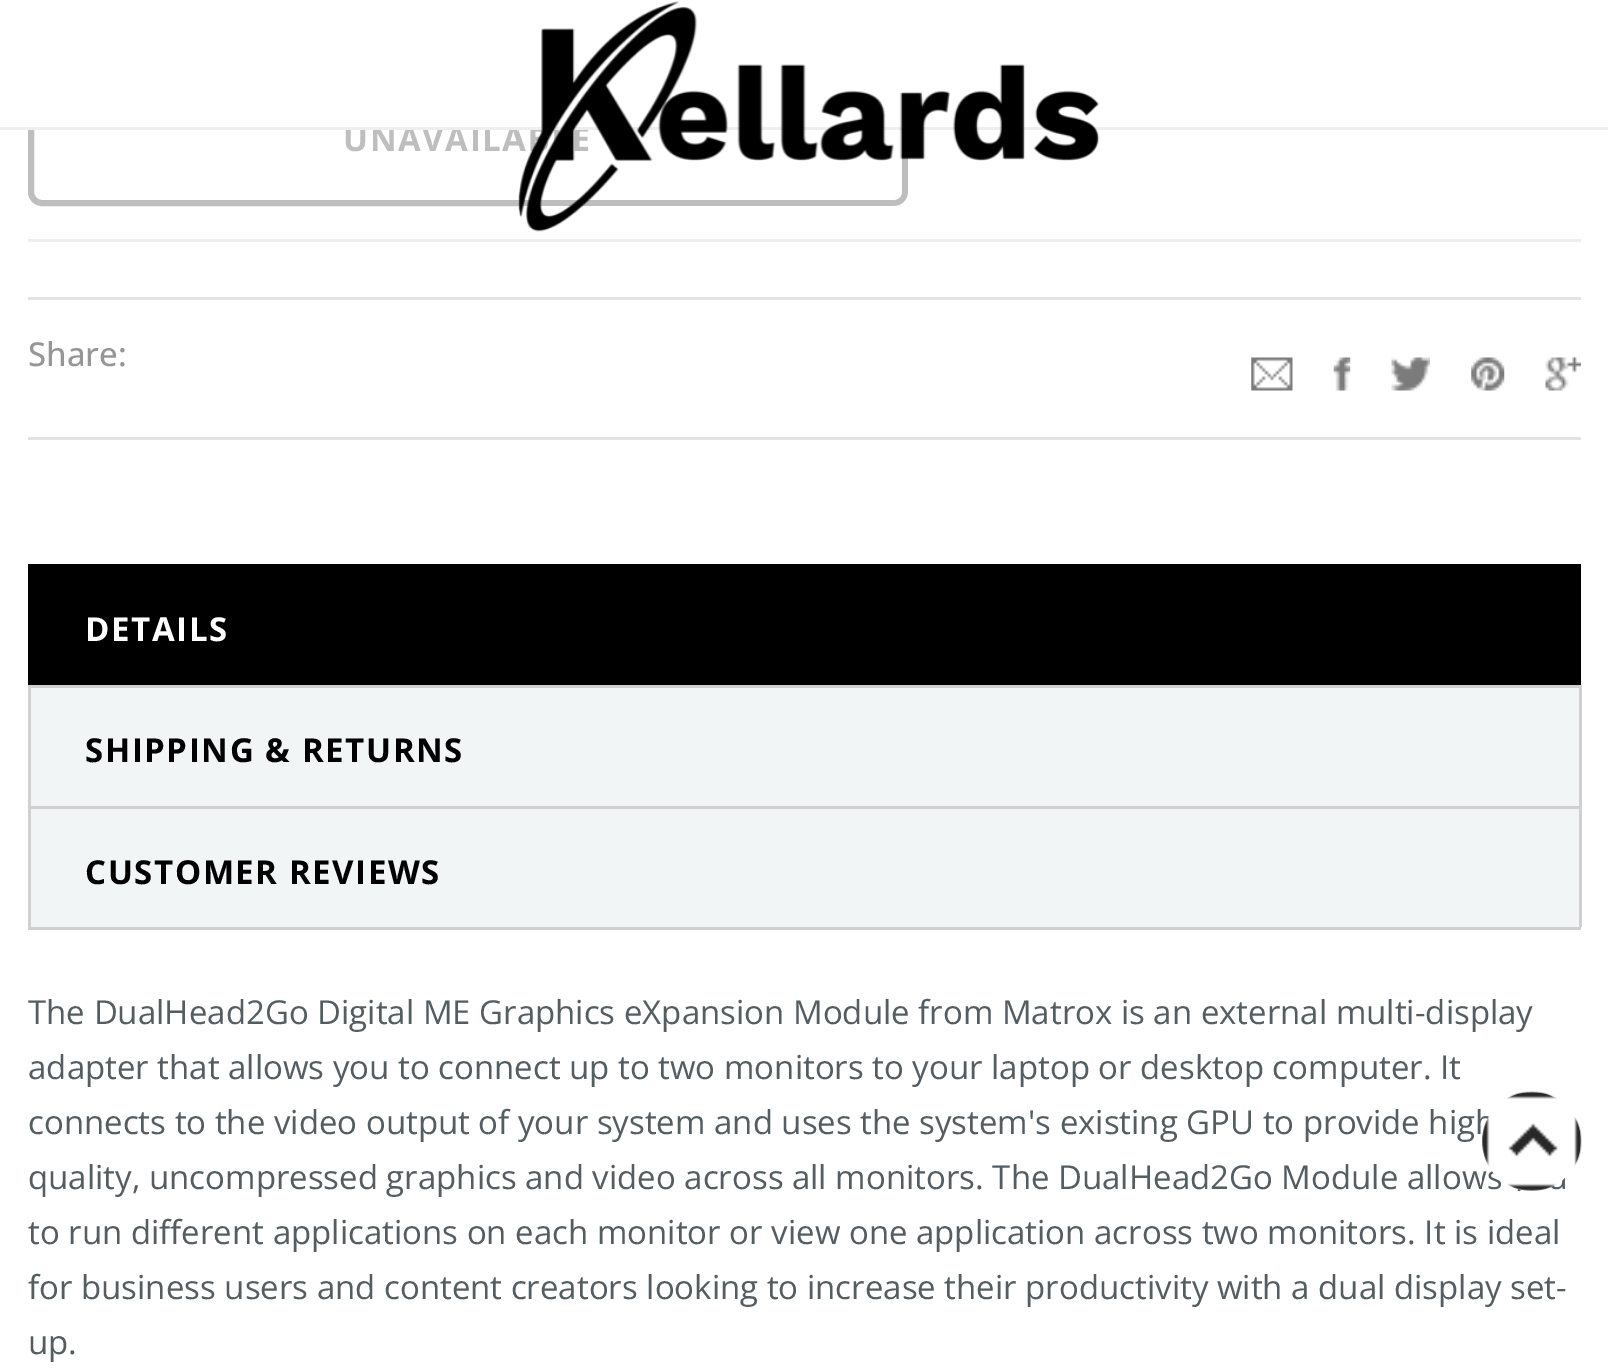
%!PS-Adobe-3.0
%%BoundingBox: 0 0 1608 1371
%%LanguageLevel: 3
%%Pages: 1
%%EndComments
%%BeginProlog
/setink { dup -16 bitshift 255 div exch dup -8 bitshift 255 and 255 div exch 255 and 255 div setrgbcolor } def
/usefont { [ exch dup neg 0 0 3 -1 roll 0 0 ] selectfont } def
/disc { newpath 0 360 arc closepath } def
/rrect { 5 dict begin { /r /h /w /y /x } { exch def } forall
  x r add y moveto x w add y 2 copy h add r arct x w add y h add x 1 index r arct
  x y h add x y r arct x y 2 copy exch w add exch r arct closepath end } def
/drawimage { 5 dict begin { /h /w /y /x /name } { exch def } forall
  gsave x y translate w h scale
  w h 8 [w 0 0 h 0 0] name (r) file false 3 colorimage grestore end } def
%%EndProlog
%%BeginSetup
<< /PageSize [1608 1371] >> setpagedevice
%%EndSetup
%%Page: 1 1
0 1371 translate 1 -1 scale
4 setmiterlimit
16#FFFFFF setink
0 0 1608 1371 rectfill
16#EEEEEE setink
1093 127 515 3 rectfill
16#BEBEBE setink
6 setlinewidth
31 77 874 126 11 rrect stroke
16#FFFFFF setink
28 74 880 53 rectfill
/OpenSans-Bold 33 usefont
16#BEBEBE setink
343 151 moveto 1.6 0 (UNAVAILABLE) ashow
16#EEEEEE setink
0 127 1050 3 rectfill
(img1.raw) 518 1 582 231 drawimage
[
    [28 239 1553 3 16#EEEEEE]
    [28 297 1553 3 16#E3E3E3]
    [28 437 1553 3 16#E3E3E3]
] { aload pop setink rectfill } forall
/OpenSans-Medium 33 usefont
16#969696 setink
28 366 moveto (Share:) show
(img2.raw) 1251 357 42 34 drawimage
(img3.raw) 1333 357 18 34 drawimage
(img4.raw) 1391 357 39 34 drawimage
(img5.raw) 1471 357 34 34 drawimage
(img6.raw) 1545 357 37 34 drawimage
16#D0D0D0 setink
28 927 1553 3 rectfill
16#000000 setink
28 564 1553 121 rectfill
/OpenSans-Bold 33 usefont
16#FFFFFF setink
85 641 moveto 1.6 0 (DETAILS) ashow
[
    [31 688 1548 118 16#F2F5F6]
    [28 685 1553 3 16#D0D0D0]
    [1579 685 3 121 16#D0D0D0]
    [28 685 3 121 16#D0D0D0]
] { aload pop setink rectfill } forall
16#000000 setink
85 762 moveto 1.6 0 (SHIPPING & RETURNS) ashow
[
    [31 809 1548 118 16#F2F5F6]
    [28 806 1553 3 16#D0D0D0]
    [1579 806 3 121 16#D0D0D0]
    [28 806 3 121 16#D0D0D0]
] { aload pop setink rectfill } forall
16#000000 setink
85 884 moveto 1.6 0 (CUSTOMER REVIEWS) ashow
/OpenSans-Regular 33 usefont
16#535D62 setink
[
    [(The DualHead2Go Digital ME Graphics eXpansion Module from Matrox is an external multi-display) 28 1024]
    [(adapter that allows you to connect up to two monitors to your laptop or desktop computer. It) 28 1079]
    [(connects to the video output of your system and uses the system's existing GPU to provide high) 28 1134]
    [(quality, uncompressed graphics and video across all monitors. The DualHead2Go Module allow) 28 1189]
    [(to run different applications on each monitor or view one application across two monitors. It is ideal) 28 1244]
    [(for business users and content creators looking to increase their productivity with a dual display set-) 28 1299]
    [(up.) 28 1354]
] { aload pop moveto show } forall
16#FFFFFF setink
1531.5 1141.5 49.5 disc fill
(img7.raw) 1482 1091 100 100 drawimage
showpage
%%EOF
